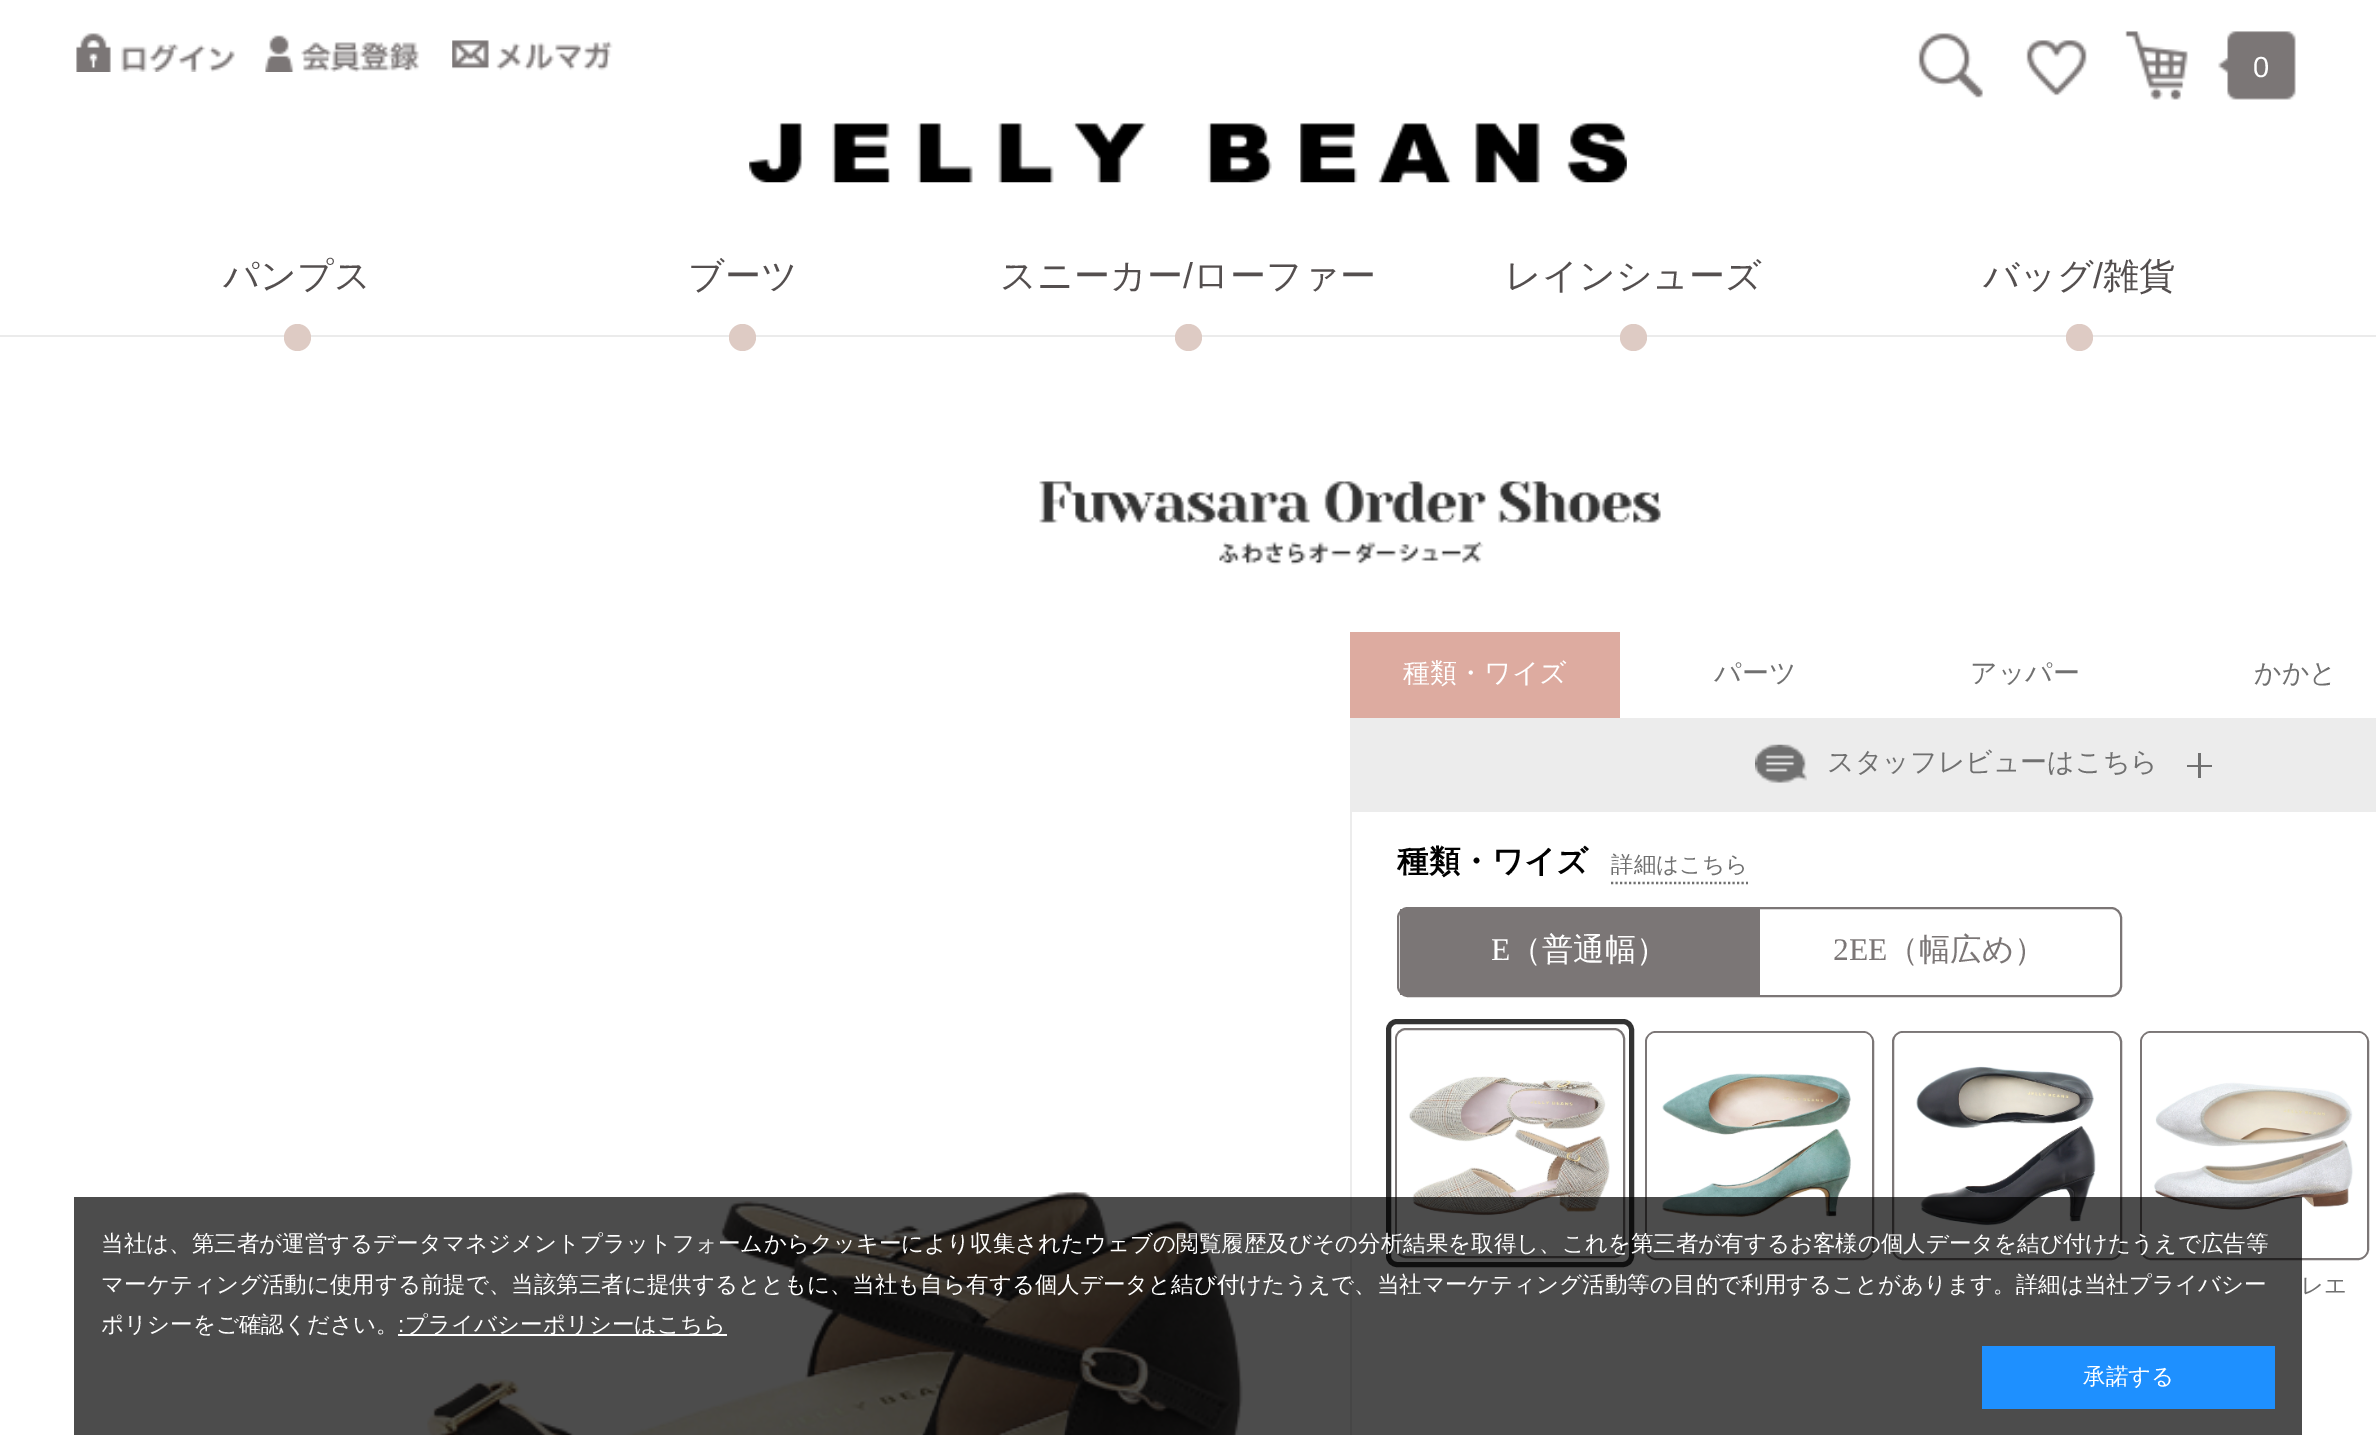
%!PS-Adobe-3.0
%%BoundingBox: 0 0 2376 1435
%%LanguageLevel: 3
%%Pages: 1
%%EndComments
%%BeginProlog
/setink { dup -16 bitshift 255 div exch dup -8 bitshift 255 and 255 div exch 255 and 255 div setrgbcolor } def
/usefont { [ exch dup neg 0 0 3 -1 roll 0 0 ] selectfont } def
/setalpha { dup .setfillconstantalpha .setstrokeconstantalpha } def
/disc { newpath 0 360 arc closepath } def
/rrect { 5 dict begin { /r /h /w /y /x } { exch def } forall
  x r add y moveto x w add y 2 copy h add r arct x w add y h add x 1 index r arct
  x y h add x y r arct x y 2 copy exch w add exch r arct closepath end } def
/drawimage { 5 dict begin { /h /w /y /x /name } { exch def } forall
  gsave x y translate w h scale
  w h 8 [w 0 0 h 0 0] name (r) file false 3 colorimage grestore end } def
%%EndProlog
%%BeginSetup
<< /PageSize [2376 1435] /PageUsesTransparency true >> setpagedevice
%%EndSetup
%%Page: 1 1
0 .pushpdf14devicefilter
0 1435 translate 1 -1 scale
4 setmiterlimit
16#FFFFFF setink
0 0 2376 1435 rectfill
16#EBEBEB setink
0 335 2376 2 rectfill
(img1.raw) 76 33 159 39 drawimage
(img2.raw) 265 35 155 37 drawimage
(img3.raw) 452 40 161 31 drawimage
(img4.raw) 1918 33 65 65 drawimage
(img5.raw) 2026 40 61 56 drawimage
(img6.raw) 2125 31 171 69 drawimage
/LiberationSans-Regular 29 usefont
16#FFFFFF setink
2253 77 moveto (0) show
(img7.raw) 749 121 878 62 drawimage
/WenQuanYiZenHei-Medium 36 usefont
16#544F4F setink
223 288 moveto (パンプス) show
16#DECBC4 setink
297.5 337.5 13.5 disc fill
16#544F4F setink
688 288 moveto (ブーツ) show
16#DECBC4 setink
742.5 337.5 13.5 disc fill
16#544F4F setink
1000 288 moveto (スニーカー) show
/LiberationSans-Regular 36 usefont
1183 288 moveto (/) show
/WenQuanYiZenHei-Medium 36 usefont
1193 288 moveto (ローファー) show
16#DECBC4 setink
1188.5 337.5 13.5 disc fill
16#544F4F setink
1505 288 moveto (レインシューズ) show
16#DECBC4 setink
1633.5 337.5 13.5 disc fill
16#544F4F setink
1983 288 moveto (バッグ) show
/LiberationSans-Regular 36 usefont
2093 288 moveto (/) show
/WenQuanYiZenHei-Medium 36 usefont
2103 288 moveto (雑貨) show
16#DECBC4 setink
2079.5 337.5 13.5 disc fill
(img8.raw) 1039 481 622 84 drawimage
(img9.raw) 721 1192 522 243 drawimage
(img12.raw) 511 1409 63 26 drawimage
(img10.raw) 427 1379 127 56 drawimage
(img11.raw) 626 1351 444 84 drawimage
16#DDABA0 setink
1350 632 270 86 rectfill
/WenQuanYiZenHei-Medium 27 usefont
16#FFFFFF setink
1403 682 moveto (種類・ワイズ) show
16#707070 setink
[
    [(パーツ) 1714 682]
    [(アッパー) 1970 682]
    [(かかと) 2254 682]
] { aload pop moveto show } forall
16#ECECEC setink
1350 718 1026 94 rectfill
(img13.raw) 1755 744 52 39 drawimage
16#707070 setink
1827 771 moveto (スタッフレビューはこちら) show
[
    [2198 753 3 25 16#707070]
    [2187 765 25 2 16#707070]
    [1350 812 2 623 16#ECECEC]
] { aload pop setink rectfill } forall
/WenQuanYiZenHei-Bold 31.5 usefont
16#000000 setink
1397 872 moveto (種類・ワイズ) show
16#707070 setink
2.2 setlinewidth
[2.25 2.25] 0 setdash
1611 883 moveto 1748 883 lineto stroke
/WenQuanYiZenHei-Medium 22.5 usefont
1611 872 moveto (詳細はこちら) show
16#7B7676 setink
2 setlinewidth
[] 0 setdash
1398 908 723 88 10 rrect stroke
1400 909 360 86 rectfill
/LiberationSerif-Regular 31.5 usefont
16#FFFFFF setink
1491 960 moveto (E) show
/WenQuanYiZenHei-Medium 31.5 usefont
1510 960 moveto (（普通幅）) show
/LiberationSerif-Regular 31.5 usefont
16#7B7676 setink
1833 960 moveto (2EE) show
/WenQuanYiZenHei-Medium 31.5 usefont
1887 960 moveto (（幅広め）) show
1396 1029 228 228 10 rrect stroke
(img14.raw) 1397 1033 213 217 drawimage
16#333333 setink
5 setlinewidth
1388.5 1021.5 243 243 8.5 rrect stroke
16#7B7676 setink
2 setlinewidth
1646 1032 227 227 10 rrect stroke
(img15.raw) 1647 1032 225 226 drawimage
1893 1032 228 227 10 rrect stroke
(img16.raw) 1895 1032 224 226 drawimage
2141 1032 227 227 10 rrect stroke
(img17.raw) 2142 1032 225 226 drawimage
/WenQuanYiZenHei-Medium 22.5 usefont
16#707070 setink
2301 1293 moveto (レエ) show
0.7 setalpha
16#000000 setink
74 1197 2228 238 rectfill
1 setalpha
16#FFFFFF setink
[
    [(当社は、第三者が運営するデータマネジメントプラットフォームからクッキーにより収集されたウェブの閲覧履歴及びその分析結果を取得し、これを第三者が有するお客様の個人データを結び付けたうえで広告等) 101 1251]
    [(マーケティング活動に使用する前提で、当該第三者に提供するとともに、当社も自ら有する個人データと結び付けたうえで、当社マーケティング活動等の目的で利用することがあります。詳細は当社プライバシー) 101 1292]
    [(ポリシーをご確認ください。) 101 1332]
] { aload pop moveto show } forall
/LiberationSans-Regular 22.5 usefont
398 1332 moveto (:) show
398 1334 329 2 rectfill
/WenQuanYiZenHei-Medium 22.5 usefont
405 1332 moveto (プライバシーポリシーはこちら) show
16#1E90FF setink
1982 1346 293 63 rectfill
16#FFFFFF setink
2083 1384 moveto (承諾する) show
.poppdf14devicefilter showpage
%%EOF
